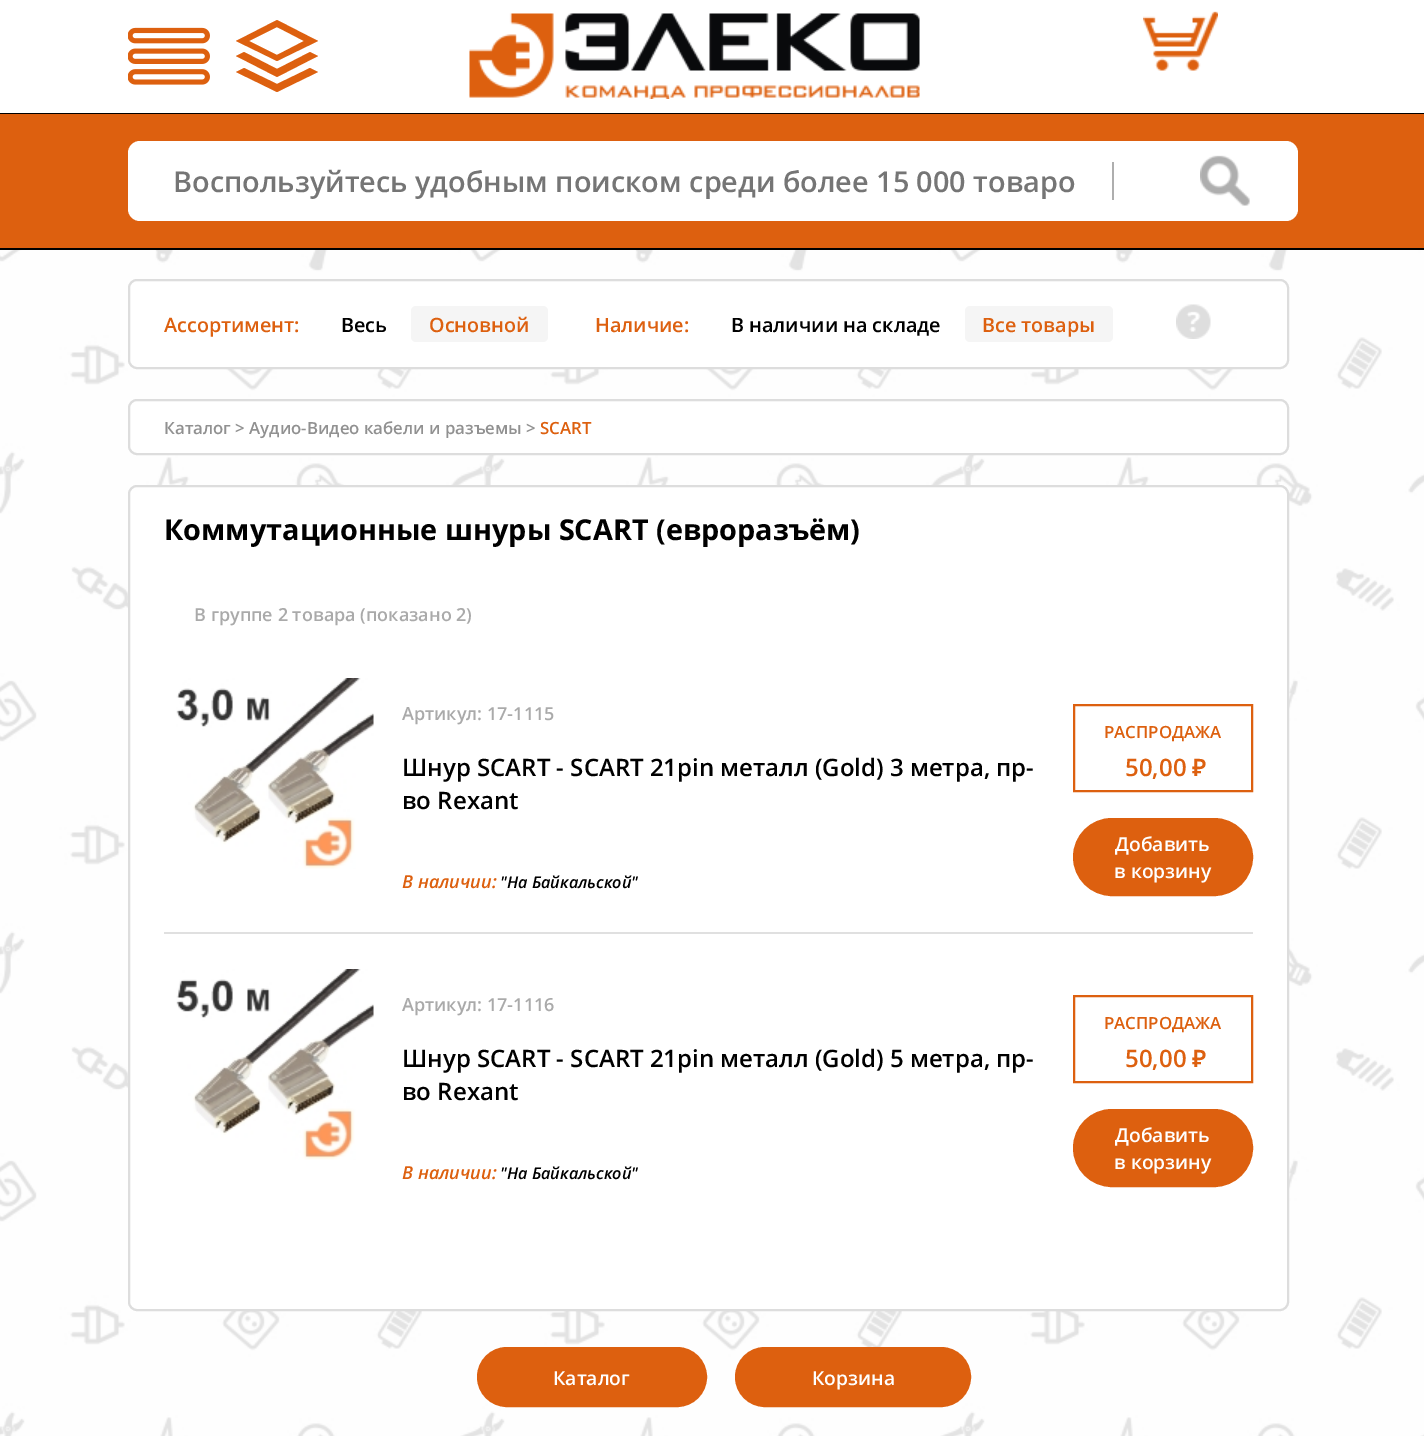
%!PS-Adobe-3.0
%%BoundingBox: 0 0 1424 1436
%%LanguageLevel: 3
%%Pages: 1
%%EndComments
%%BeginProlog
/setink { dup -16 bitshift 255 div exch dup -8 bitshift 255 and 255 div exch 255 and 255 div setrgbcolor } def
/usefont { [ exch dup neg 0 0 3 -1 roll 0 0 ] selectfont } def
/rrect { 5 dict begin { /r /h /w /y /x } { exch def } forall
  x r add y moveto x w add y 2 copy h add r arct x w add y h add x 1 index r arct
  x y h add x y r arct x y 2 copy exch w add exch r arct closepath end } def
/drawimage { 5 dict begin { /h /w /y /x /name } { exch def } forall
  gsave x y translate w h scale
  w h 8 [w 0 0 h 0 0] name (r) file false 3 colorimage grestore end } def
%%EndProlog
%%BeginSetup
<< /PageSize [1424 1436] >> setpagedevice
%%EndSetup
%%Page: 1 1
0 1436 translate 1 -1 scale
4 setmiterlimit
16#FFFFFF setink
0 0 1424 1436 rectfill
(img1.raw) 0 250 1424 1186 drawimage
16#000000 setink
0 113 1424 1 rectfill
(img2.raw) 128 27 82 58 drawimage
16#DD600F setink
318 41 moveto 277 20 lineto 236 41 lineto 277 61 lineto closepath 277 27 moveto 304 41 lineto 277 55 lineto 249 41 lineto closepath 310 52 moveto 318 56 lineto 277 77 lineto 236 56 lineto 244 52 lineto 277 69 lineto closepath 310 68 moveto 318 72 lineto 277 92 lineto 236 72 lineto 244 68 lineto 277 84 lineto closepath fill
(img3.raw) 469 13 451 86 drawimage
(img4.raw) 1143 11 75 60 drawimage
0 114 1424 134 rectfill
16#000000 setink
0 248 1424 2 rectfill
16#FFFFFF setink
128 141 1170 80 12 rrect fill
/OpenSans-SemiBold 28.8 usefont
16#757575 setink
173 192 moveto (Воспользуйтесь удобным поиском среди более 15 000 товаро) show
16#AEAEAE setink
1112 162 2 38 rectfill
(img5.raw) 1200 155 50 51 drawimage
16#FFFFFF setink
129 280 1159 88 8 rrect gsave fill grestore
16#DDDDDD setink
2 setlinewidth
stroke
/OpenSans-SemiBold 19.75 usefont
16#DD600F setink
164 332 moveto (Ассортимент:) show
16#000000 setink
341 332 moveto (Весь) show
16#F5F5F5 setink
411 306 137 36 5 rrect fill
16#DD600F setink
429 332 moveto (Основной) show
595 332 moveto (Наличие:) show
16#000000 setink
731 332 moveto (В наличии на складе) show
16#F5F5F5 setink
965 306 148 36 5 rrect fill
16#DD600F setink
982 332 moveto (Все товары) show
(img6.raw) 1176 304 35 35 drawimage
16#FFFFFF setink
129 400 1159 54 8 rrect gsave fill grestore
16#DDDDDD setink
stroke
/OpenSans-SemiBold 16.8 usefont
16#919191 setink
164 434 moveto (Каталог > Аудио-Видео кабели и разъемы >) show
16#DD600F setink
540 434 moveto (SCART) show
16#FFFFFF setink
129 486 1159 824 8 rrect gsave fill grestore
16#DDDDDD setink
stroke
/OpenSans-Bold 28.8 usefont
16#000000 setink
164 540 moveto (Коммутационные шнуры SCART \(евроразъём\)) show
/OpenSans-SemiBold 18 usefont
16#AAAAAA setink
194 621 moveto (В группе 2 товара \(показано 2\)) show
(img7.raw) 176 678 198 191 drawimage
402 720 moveto (Артикул: 17-1115) show
/OpenSans-SemiBold 24 usefont
16#000000 setink
402 776 moveto (Шнур SCART - SCART 21pin металл \(Gold\) 3 метра, пр-) show
402 809 moveto (во Rexant) show
/OpenSans-SemiBoldItalic 18 usefont
16#DD600F setink
402 888 moveto (В наличии:) show
/OpenSans-SemiBoldItalic 16.25 usefont
16#000000 setink
500 888 moveto ("На Байкальской") show
16#DD600F setink
1074 705 178 86 rectstroke
/OpenSans-SemiBold 16.8 usefont
1104 738 moveto (РАСПРОДАЖА) show
/OpenSans-SemiBold 24 usefont
1125 776 moveto (50,00) show
/NotoSans-SemiBold 24 usefont
1192 776 moveto (₽) show
1074 819 178 76 38 rrect gsave fill grestore
stroke
/OpenSans-SemiBold 19.25 usefont
16#FFFFFF setink
1115 851 moveto (Добавить) show
1114 878 moveto (в корзину) show
16#E0E0E0 setink
164 932 1089 2 rectfill
(img8.raw) 176 969 198 191 drawimage
/OpenSans-SemiBold 18 usefont
16#AAAAAA setink
402 1011 moveto (Артикул: 17-1116) show
/OpenSans-SemiBold 24 usefont
16#000000 setink
402 1067 moveto (Шнур SCART - SCART 21pin металл \(Gold\) 5 метра, пр-) show
402 1100 moveto (во Rexant) show
/OpenSans-SemiBoldItalic 18 usefont
16#DD600F setink
402 1179 moveto (В наличии:) show
/OpenSans-SemiBoldItalic 16.25 usefont
16#000000 setink
500 1179 moveto ("На Байкальской") show
16#DD600F setink
1074 996 178 86 rectstroke
/OpenSans-SemiBold 16.8 usefont
1104 1029 moveto (РАСПРОДАЖА) show
/OpenSans-SemiBold 24 usefont
1125 1067 moveto (50,00) show
/NotoSans-SemiBold 24 usefont
1192 1067 moveto (₽) show
1074 1110 178 76 38 rrect gsave fill grestore
stroke
/OpenSans-SemiBold 19.25 usefont
16#FFFFFF setink
1115 1142 moveto (Добавить) show
1114 1169 moveto (в корзину) show
16#DD600F setink
478 1348 228 58 29 rrect gsave fill grestore
stroke
16#FFFFFF setink
553 1385 moveto (Каталог) show
16#DD600F setink
736 1348 234 58 29 rrect gsave fill grestore
stroke
16#FFFFFF setink
812 1385 moveto (Корзина) show
showpage
%%EOF
